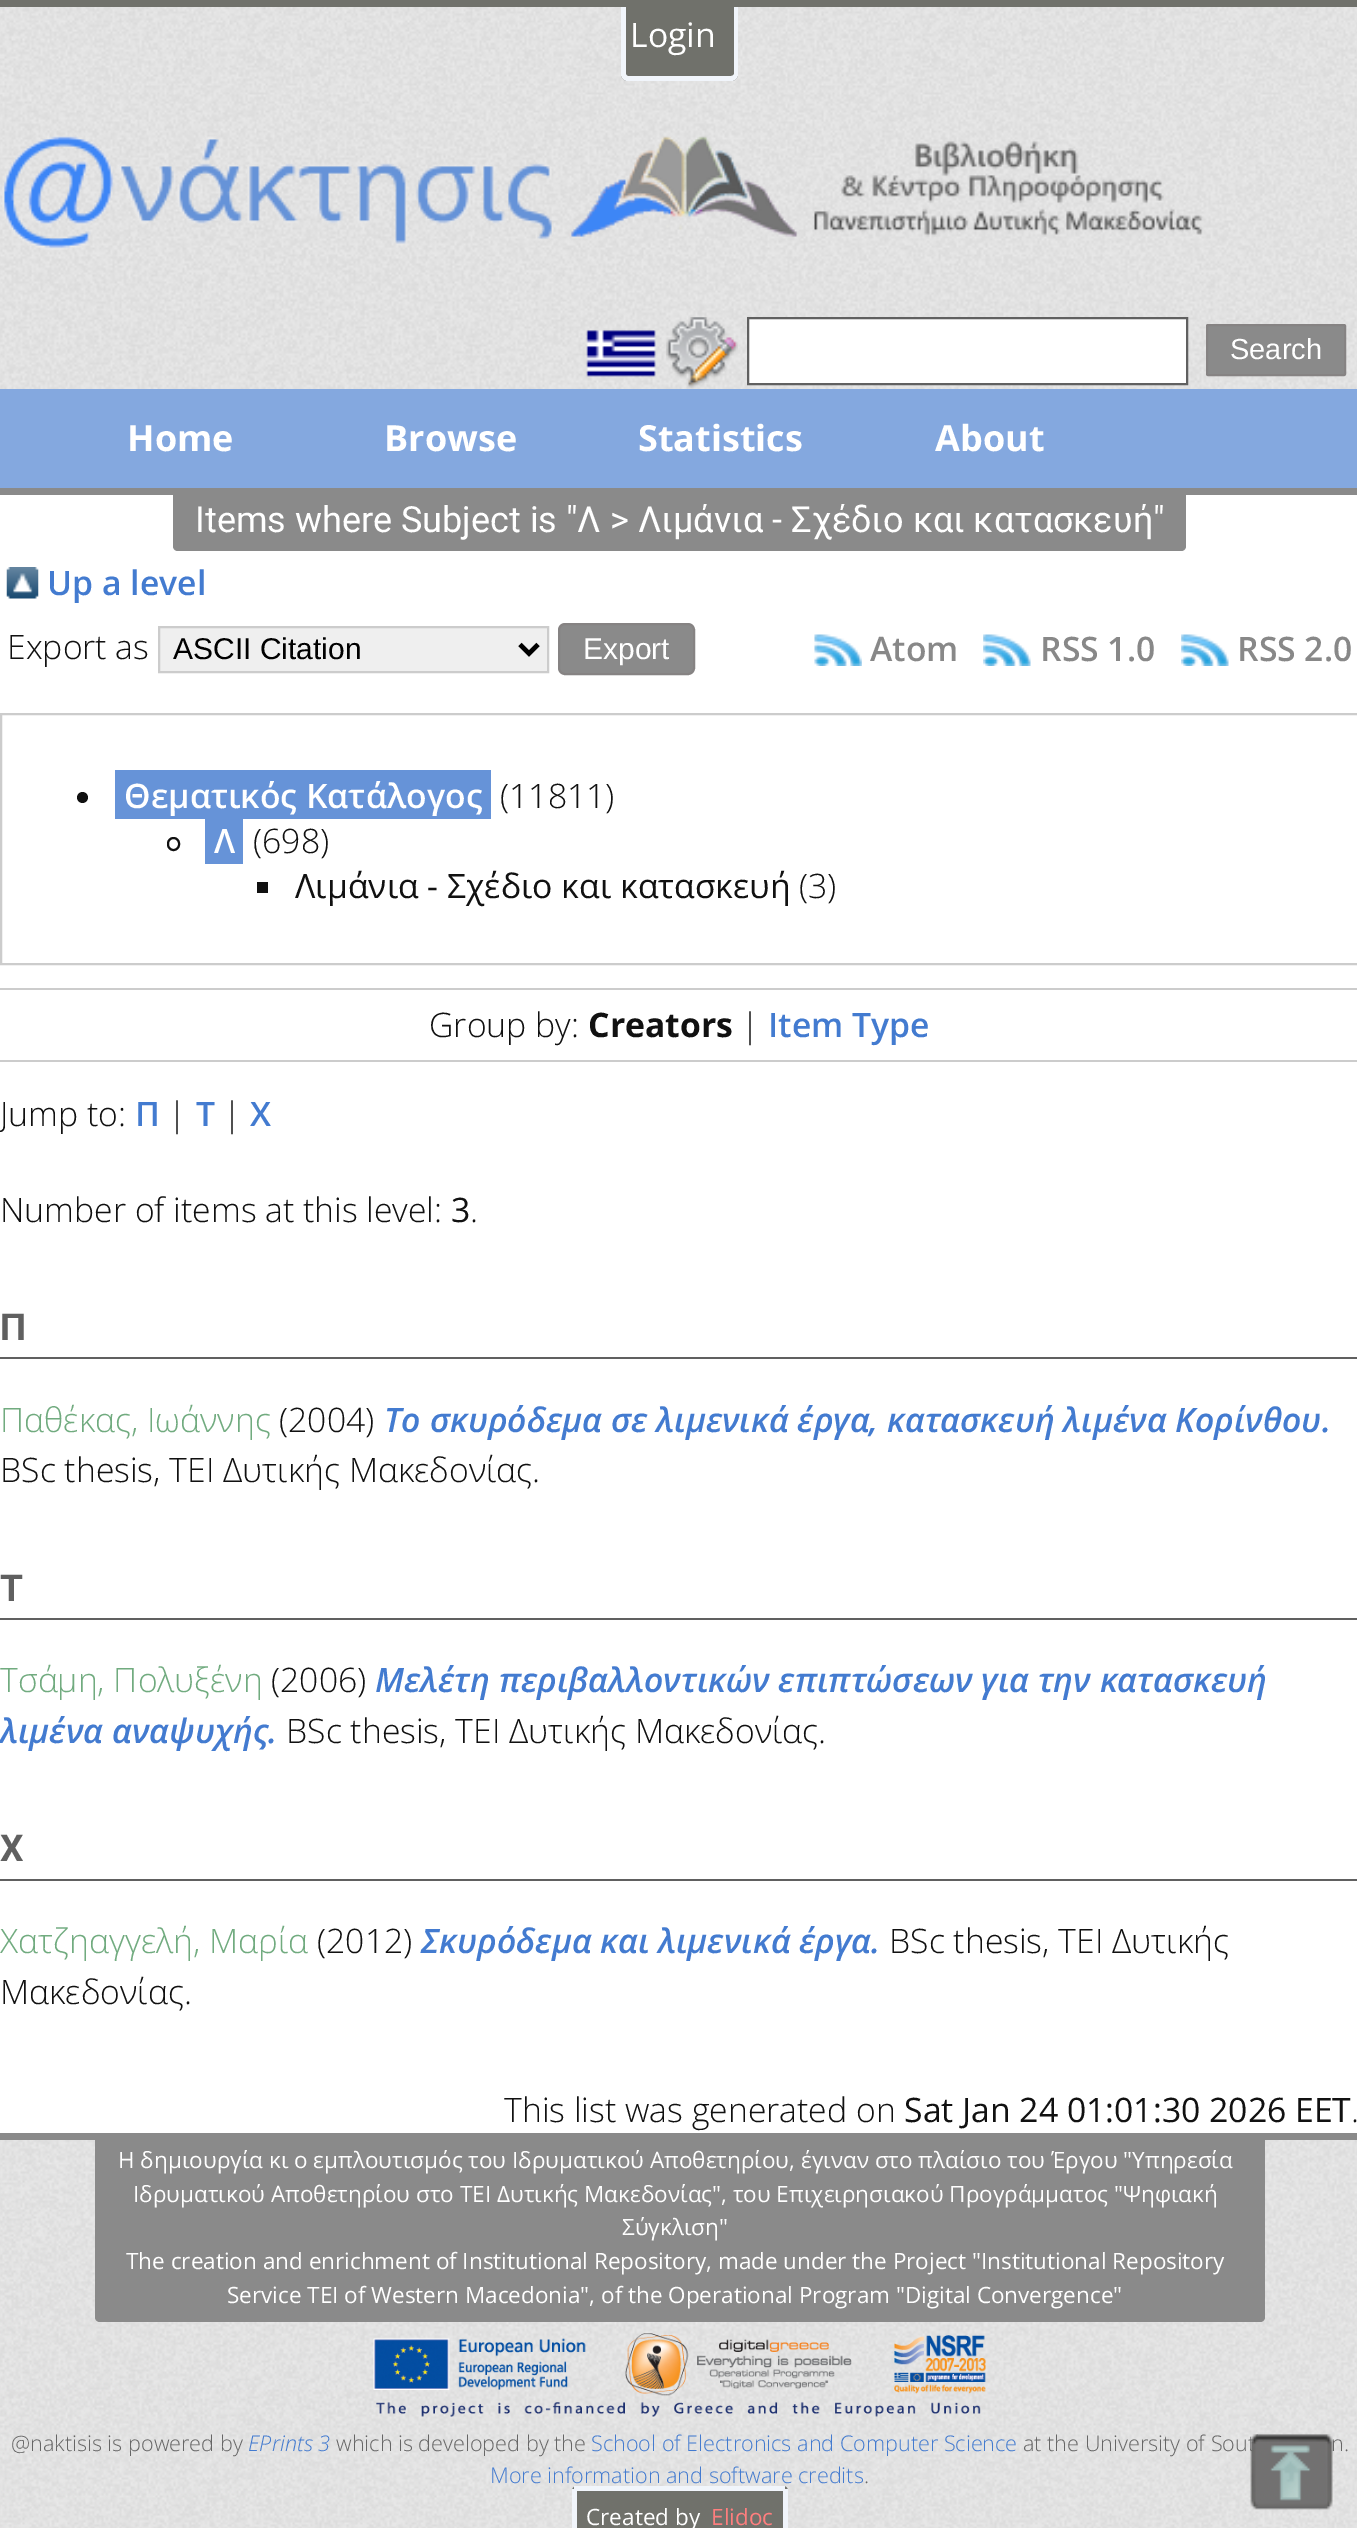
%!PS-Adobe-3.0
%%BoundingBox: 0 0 1357 2528
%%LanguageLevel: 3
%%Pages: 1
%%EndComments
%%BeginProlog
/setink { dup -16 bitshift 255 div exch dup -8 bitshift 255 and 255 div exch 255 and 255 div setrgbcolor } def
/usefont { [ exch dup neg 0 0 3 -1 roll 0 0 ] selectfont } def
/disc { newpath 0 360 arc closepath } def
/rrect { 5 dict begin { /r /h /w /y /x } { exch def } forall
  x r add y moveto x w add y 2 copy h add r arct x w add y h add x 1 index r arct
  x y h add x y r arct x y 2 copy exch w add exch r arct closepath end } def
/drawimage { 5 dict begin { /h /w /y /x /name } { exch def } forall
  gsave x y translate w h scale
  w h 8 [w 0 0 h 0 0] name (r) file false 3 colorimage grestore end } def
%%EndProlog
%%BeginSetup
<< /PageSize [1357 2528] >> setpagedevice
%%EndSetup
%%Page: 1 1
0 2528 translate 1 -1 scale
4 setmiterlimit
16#FFFFFF setink
0 0 1357 2528 rectfill
(img1.raw) 0 7 1357 2521 drawimage
16#70716B setink
0 0 1357 7 rectfill
621 7 moveto 738 7 lineto 738 74 lineto 738 78 735 81 731 81 curveto 628 81 lineto 624 81 621 78 621 74 curveto closepath fill
16#F1F5FB setink
621 7 moveto 738 7 lineto 738 74 lineto 738 78 735 81 731 81 curveto 628 81 lineto 624 81 621 78 621 74 curveto closepath 626 7 moveto 734 7 lineto 734 74 lineto 734 75 732 76 731 76 curveto 628 76 lineto 627 76 626 75 626 74 curveto closepath eofill
/OpenSans-Regular 33.75 usefont
16#FFFFFF setink
630 47 moveto (Login) show
(img2.raw) 2 136 1201 114 drawimage
(img3.raw) 586 330 70 47 drawimage
(img4.raw) 666 317 72 72 drawimage
748 318 moveto 1187 318 lineto 1187 384 lineto 748 384 lineto closepath gsave fill grestore
16#606060 setink
2 setlinewidth
stroke
16#8A8A8A setink
1207 325 138 50 1 rrect gsave fill grestore
16#868383 setink
stroke
/LiberationSans-Regular 29 usefont
16#FFFFFF setink
1230 359 moveto (Search) show
16#84A8DF setink
0 389 1357 99 rectfill
16#8A8A8A setink
0 488 1357 7 rectfill
/OpenSans-Bold 36 usefont
16#FFFFFF setink
[
    [(Home) 127 451]
    [(Browse) 384 451]
    [(Statistics) 638 451]
    [(About) 935 451]
] { aload pop moveto show } forall
0 495 1357 1638 rectfill
16#8A8A8A setink
173 495 moveto 1186 495 lineto 1186 546 lineto 1186 549 1184 551 1181 551 curveto 178 551 lineto 175 551 173 549 173 546 curveto closepath fill
/Roboto-Regular 36 usefont
16#FFFFFF setink
195 532 moveto (Items where Subject is "Λ > Λιμάνια - Σχέδιο και κατασκευή") show
(img5.raw) 6 567 33 32 drawimage
/OpenSans-SemiBold 33.75 usefont
16#437BD0 setink
47 595 moveto (Up a level) show
/OpenSans-Light 33.75 usefont
16#111111 setink
7 659 moveto (Export as) show
16#EFEFEF setink
159 627 moveto 548 627 lineto 548 672 lineto 159 672 lineto closepath gsave fill grestore
16#CCCCCC setink
stroke
16#000000 setink
4.5 setlinewidth
520 644.5 moveto 529 653.5 lineto 538 644.5 lineto stroke
/LiberationSans-Regular 30 usefont
173 659 moveto (ASCII Citation) show
16#8A8A8A setink
559 624 135 50 6 rrect gsave fill grestore
16#868383 setink
2 setlinewidth
stroke
16#FFFFFF setink
583 659 moveto (Export) show
(img6.raw) 814 634 48 32 drawimage
/OpenSans-SemiBold 33.75 usefont
16#888888 setink
870 661 moveto (Atom) show
(img7.raw) 983 634 48 32 drawimage
1040 661 moveto (RSS 1.0) show
(img8.raw) 1181 634 48 32 drawimage
1237 661 moveto (RSS 2.0) show
16#CCCCCC setink
1 714 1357 250 rectstroke
16#111111 setink
82.5 797.5 5.5 disc fill
16#6693D8 setink
115 770 376 49 rectfill
16#FFFFFF setink
124 808 moveto (Θεματικός Κατάλογος) show
/OpenSans-Light 33.75 usefont
16#111111 setink
500 808 moveto (\(11811\)) show
168 838 11 12 5.5 rrect stroke
16#6693D8 setink
205 819 38 45 rectfill
/OpenSans-SemiBold 33.75 usefont
16#FFFFFF setink
214 853 moveto (Λ) show
/OpenSans-Light 33.75 usefont
16#111111 setink
253 853 moveto (\(698\)) show
257 882 11 11 rectfill
/OpenSans-Regular 33.75 usefont
295 898 moveto (Λιμάνια - Σχέδιο και κατασκευή) show
/OpenSans-Light 33.75 usefont
799 898 moveto (\(3\)) show
16#CCCCCC setink
0 988 1357 2 rectfill
0 1060 1357 2 rectfill
16#111111 setink
429 1037 moveto (Group by:) show
/OpenSans-Bold 33.75 usefont
588 1037 moveto (Creators) show
/OpenSans-Light 33.75 usefont
741 1037 moveto (|) show
/OpenSans-SemiBold 33.75 usefont
16#437BD0 setink
768 1037 moveto (Item Type) show
/OpenSans-Light 33.75 usefont
16#111111 setink
0 1126 moveto (Jump to:) show
/OpenSans-SemiBold 33.75 usefont
16#437BD0 setink
135 1126 moveto (Π) show
/OpenSans-Light 33.75 usefont
16#111111 setink
168 1126 moveto (|) show
/OpenSans-SemiBold 33.75 usefont
16#437BD0 setink
196 1126 moveto (Τ) show
/OpenSans-Light 33.75 usefont
16#111111 setink
223 1126 moveto (|) show
/OpenSans-SemiBold 33.75 usefont
16#437BD0 setink
250 1126 moveto (Χ) show
/OpenSans-Light 33.75 usefont
16#111111 setink
0 1222 moveto (Number of items at this level:) show
/OpenSans-Regular 33.75 usefont
451 1222 moveto (3) show
/OpenSans-Light 33.75 usefont
470 1222 moveto (.) show
16#606060 setink
0 1357 1357 2 rectfill
/Roboto-Bold 37 usefont
0 1340 moveto (Π) show
/OpenSans-Light 33.75 usefont
16#71AB7F setink
0 1432 moveto (Παθέκας, Ιωάννης) show
16#111111 setink
279 1432 moveto (\(2004\)) show
/OpenSans-SemiBoldItalic 33.75 usefont
16#437BD0 setink
384 1432 moveto (Το σκυρόδεμα σε λιμενικά έργα, κατασκευή λιμένα Κορίνθου.) show
/OpenSans-Light 33.75 usefont
16#111111 setink
0 1482 moveto (BSc thesis, ΤΕΙ Δυτικής Μακεδονίας.) show
16#606060 setink
0 1618 1357 2 rectfill
/Roboto-Bold 37 usefont
0 1601 moveto (Τ) show
/OpenSans-Light 33.75 usefont
16#71AB7F setink
0 1692 moveto (Τσάμη, Πολυξένη) show
16#111111 setink
271 1692 moveto (\(2006\)) show
/OpenSans-SemiBoldItalic 33.75 usefont
16#437BD0 setink
375 1692 moveto (Μελέτη περιβαλλοντικών επιπτώσεων για την κατασκευή) show
0 1743 moveto (λιμένα αναψυχής.) show
/OpenSans-Light 33.75 usefont
16#111111 setink
286 1743 moveto (BSc thesis, ΤΕΙ Δυτικής Μακεδονίας.) show
16#606060 setink
0 1879 1357 2 rectfill
/Roboto-Bold 37 usefont
0 1861 moveto (Χ) show
/OpenSans-Light 33.75 usefont
16#71AB7F setink
0 1953 moveto (Χατζηαγγελή, Μαρία) show
16#111111 setink
317 1953 moveto (\(2012\)) show
/OpenSans-SemiBoldItalic 33.75 usefont
16#437BD0 setink
421 1953 moveto (Σκυρόδεμα και λιμενικά έργα.) show
/OpenSans-Light 33.75 usefont
16#111111 setink
[
    [(BSc thesis, ΤΕΙ Δυτικής) 889 1953]
    [(Μακεδονίας.) 0 2004]
    [(This list was generated on) 504 2122]
] { aload pop moveto show } forall
/OpenSans-Regular 33.75 usefont
904 2122 moveto (Sat Jan 24 01:01:30 2026 EET) show
/OpenSans-Light 33.75 usefont
1351 2122 moveto (.) show
16#8A8A8A setink
0 2133 1357 7 rectfill
95 2140 moveto 1265 2140 lineto 1265 2317 lineto 1265 2320 1263 2322 1260 2322 curveto 100 2322 lineto 97 2322 95 2320 95 2317 curveto closepath fill
/OpenSans-Regular 22.5 usefont
16#FFFFFF setink
[
    [(Η δημιουργία κι ο εμπλουτισμός του Ιδρυματικού Αποθετηρίου, έγιναν στο πλαίσιο του Έργου "Υπηρεσία) 118 2168]
    [(Ιδρυματικού Αποθετηρίου στο ΤΕΙ Δυτικής Μακεδονίας", του Επιχειρησιακού Προγράμματος "Ψηφιακή) 133 2202]
    [(Σύγκλιση") 622 2235]
    [(The creation and enrichment of Institutional Repository, made under the Project "Institutional Repository) 126 2269]
    [(Service TEI of Western Macedonia", of the Operational Program "Digital Convergence") 227 2303]
] { aload pop moveto show } forall
(img9.raw) 373 2333 613 84 drawimage
/OpenSans-Light 21.6 usefont
16#666666 setink
11 2451 moveto (@naktisis is powered by) show
/OpenSans-LightItalic 21.6 usefont
16#437BD0 setink
248 2451 moveto (EPrints 3) show
/OpenSans-Light 21.6 usefont
16#666666 setink
336 2451 moveto (which is developed by the) show
16#437BD0 setink
591 2451 moveto (School of Electronics and Computer Science) show
16#666666 setink
1023 2451 moveto (at the University of Sout) show
1331 2451 moveto (n.) show
16#437BD0 setink
490 2483 moveto (More information and software credits) show
16#666666 setink
864 2483 moveto (.) show
16#70716B setink
577 2486 moveto 783 2486 lineto 786 2486 788 2488 788 2491 curveto 788 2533 lineto 572 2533 lineto 572 2491 lineto 572 2488 574 2486 577 2486 curveto closepath fill
[
    [574 2486 211 5 16#F1F5FB]
    [783 2489 5 39 16#F1F5FB]
    [572 2489 5 39 16#F1F5FB]
] { aload pop setink rectfill } forall
/OpenSans-Regular 22.5 usefont
16#FFFFFF setink
586 2525 moveto (Created by) show
16#FF7E7E setink
711 2525 moveto (Elidoc) show
(img10.raw) 1250 2434 83 76 drawimage
showpage
%%EOF
